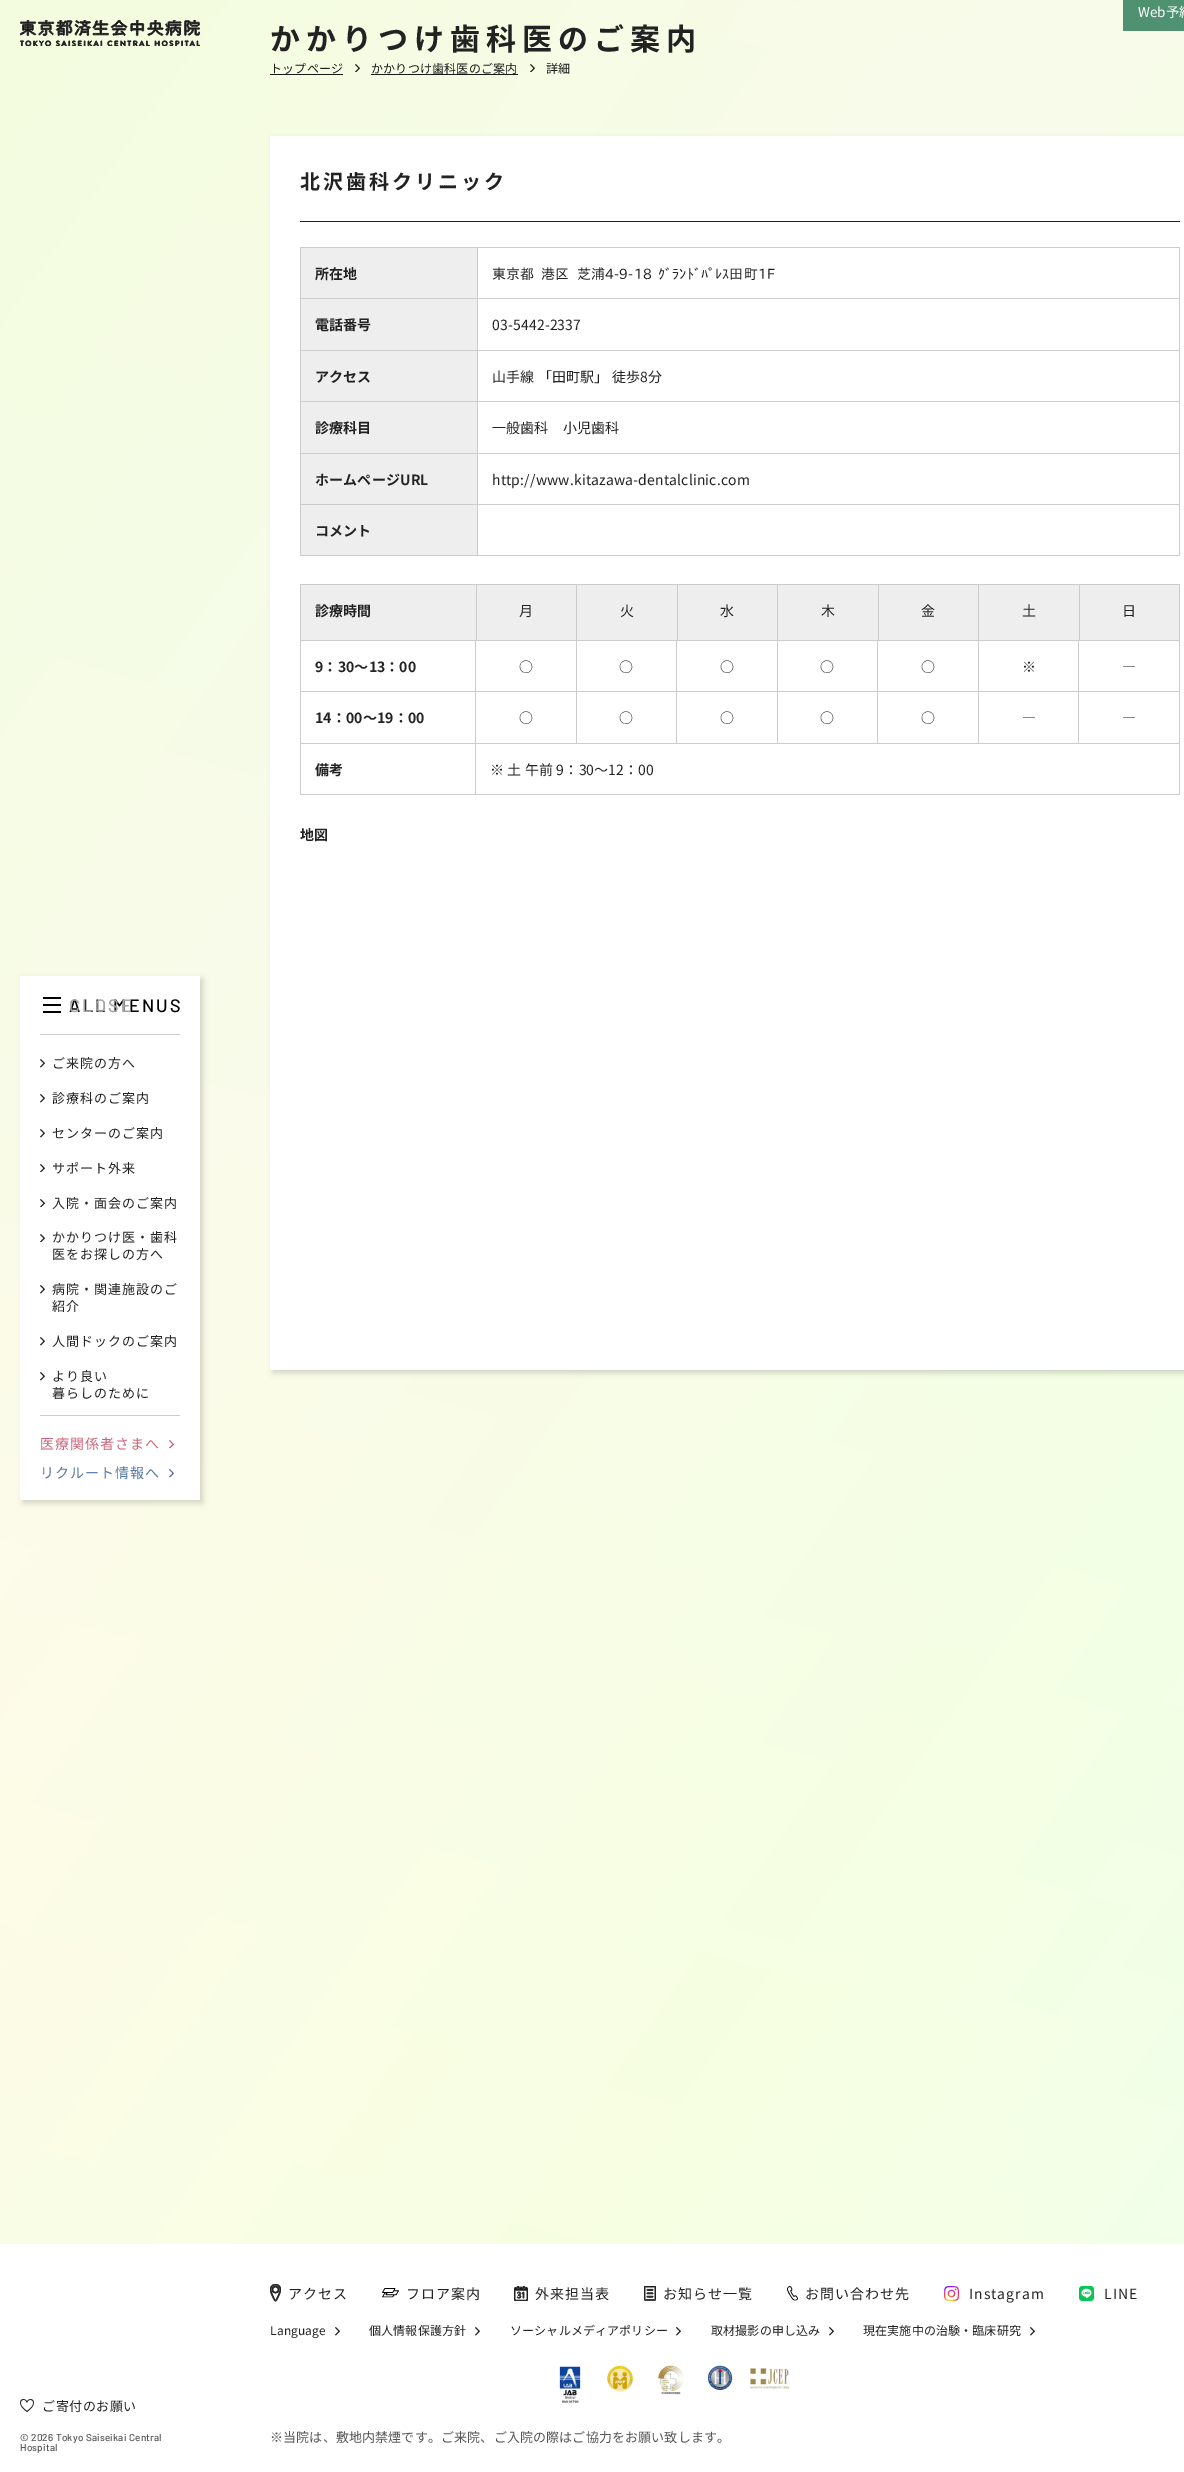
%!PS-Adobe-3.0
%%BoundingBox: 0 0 1184 2472
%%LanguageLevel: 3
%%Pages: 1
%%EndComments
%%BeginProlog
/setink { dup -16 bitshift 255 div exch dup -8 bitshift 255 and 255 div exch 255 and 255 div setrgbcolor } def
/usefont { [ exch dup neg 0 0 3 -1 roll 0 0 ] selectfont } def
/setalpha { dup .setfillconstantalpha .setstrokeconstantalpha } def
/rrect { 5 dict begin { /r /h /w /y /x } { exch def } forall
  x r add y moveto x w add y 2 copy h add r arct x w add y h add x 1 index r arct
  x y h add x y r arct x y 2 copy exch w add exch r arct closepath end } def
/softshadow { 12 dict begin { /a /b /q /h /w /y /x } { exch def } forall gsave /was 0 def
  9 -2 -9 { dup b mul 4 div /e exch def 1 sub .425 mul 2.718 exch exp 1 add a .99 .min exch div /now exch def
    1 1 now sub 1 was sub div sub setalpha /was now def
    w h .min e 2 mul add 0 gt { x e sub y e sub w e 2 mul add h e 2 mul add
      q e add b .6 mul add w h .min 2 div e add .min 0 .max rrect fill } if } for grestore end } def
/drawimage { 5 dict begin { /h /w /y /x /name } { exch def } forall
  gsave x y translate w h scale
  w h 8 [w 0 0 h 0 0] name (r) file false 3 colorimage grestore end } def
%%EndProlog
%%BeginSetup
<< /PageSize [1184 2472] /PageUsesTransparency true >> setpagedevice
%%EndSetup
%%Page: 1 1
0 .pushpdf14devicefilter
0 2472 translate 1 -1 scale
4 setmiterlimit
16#FFFFFF setink
0 0 1184 2472 rectfill
gsave 0 0 moveto 1184 0 lineto 1184 2244 lineto 0 2244 lineto closepath clip newpath
<< /ShadingType 2 /ColorSpace /DeviceRGB /Coords [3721 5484 -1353 1932] /Extend [true true] /Function << /FunctionType 3 /Domain [0 1] /Functions [<< /FunctionType 2 /Domain [0 1] /C0 [0.969 0.988 0.843] /C1 [0.922 1 0.992] /N 1 >> << /FunctionType 2 /Domain [0 1] /C0 [0.922 1 0.992] /C1 [0.902 1 0.886] /N 1 >> << /FunctionType 2 /Domain [0 1] /C0 [0.902 1 0.886] /C1 [0.957 1 0.788] /N 1 >> << /FunctionType 2 /Domain [0 1] /C0 [0.957 1 0.788] /C1 [0.914 1 0.949] /N 1 >> << /FunctionType 2 /Domain [0 1] /C0 [0.914 1 0.949] /C1 [0.957 1 0.878] /N 1 >> << /FunctionType 2 /Domain [0 1] /C0 [0.957 1 0.878] /C1 [1 0.98 0.914] /N 1 >> << /FunctionType 2 /Domain [0 1] /C0 [1 0.98 0.914] /C1 [0.969 0.988 0.843] /N 1 >>] /Bounds [0.14 0.29 0.43 0.57 0.71 0.86] /Encode [0 1 0 1 0 1 0 1 0 1 0 1 0 1] >> >> shfill grestore
0.3 setalpha
gsave 0 0 moveto 1184 0 lineto 1184 2244 lineto 0 2244 lineto closepath clip newpath
<< /ShadingType 2 /ColorSpace /DeviceRGB /Coords [1039 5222 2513 -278] /Extend [true true] /Function << /FunctionType 3 /Domain [0 1] /Functions [<< /FunctionType 2 /Domain [0 1] /C0 [0.898 0.988 0.855] /C1 [0.906 1 0.929] /N 1 >> << /FunctionType 2 /Domain [0 1] /C0 [0.906 1 0.929] /C1 [0.996 1 0.906] /N 1 >> << /FunctionType 2 /Domain [0 1] /C0 [0.996 1 0.906] /C1 [0.906 1 0.953] /N 1 >> << /FunctionType 2 /Domain [0 1] /C0 [0.906 1 0.953] /C1 [0.933 1 0.906] /N 1 >>] /Bounds [0.25 0.5 0.75] /Encode [0 1 0 1 0 1 0 1] >> >> shfill grestore
1 setalpha
16#4F9272 setink
1123 0 61 31 rectfill
/NotoSansJP-Regular 13.5 usefont
16#FFFFFF setink
1138 17 moveto (Web予約) show
(img1.raw) 20 20 180 26 drawimage
16#000000 setink
23 979 180 524 0 3 0.16 softshadow
[
    [20 976 180 524 16#FFFFFF]
    [43 997 18 2 16#000000]
    [43 1004 18 2 16#000000]
    [43 1011 18 2 16#000000]
] { aload pop setink rectfill } forall
/Barlow-Medium 18 usefont
69 1012 moveto 2.25 0 (ALL MENUS) ashow
16#A4A4A4 setink
69 1012 moveto 2.25 0 (CLOSE) ashow
16#CCCCCC setink
40 1034 140 1 rectfill
(img2.raw) 40 1059 5 9 drawimage
/NotoSansJP-Regular 13 usefont
16#222222 setink
52 1068 moveto 1 0 (ご来院の方へ) ashow
(img2.raw) 40 1094 5 9 drawimage
52 1103 moveto 1 0 (診療科のご案内) ashow
(img2.raw) 40 1129 5 9 drawimage
52 1138 moveto 1 0 (センターのご案内) ashow
(img3.raw) 40 1164 5 8 drawimage
52 1173 moveto 1 0 (サポート外来) ashow
(img3.raw) 40 1199 5 8 drawimage
52 1208 moveto 1 0 (入院・面会のご案内) ashow
(img3.raw) 40 1234 5 8 drawimage
52 1242 moveto 1 0 (かかりつけ医・歯科) ashow
52 1259 moveto 1 0 (医をお探しの方へ) ashow
(img2.raw) 40 1285 5 9 drawimage
52 1294 moveto 1 0 (病院・関連施設のご) ashow
52 1311 moveto 1 0 (紹介) ashow
(img2.raw) 40 1337 5 9 drawimage
52 1346 moveto 1 0 (人間ドックのご案内) ashow
(img2.raw) 40 1372 5 9 drawimage
52 1381 moveto 1 0 (より良い) ashow
52 1398 moveto 1 0 (暮らしのために) ashow
16#CCCCCC setink
40 1415 140 1 rectfill
/NotoSansJP-Regular 14 usefont
16#CC6478 setink
40 1449 moveto 1 0 (医療関係者さまへ) ashow
(img4.raw) 169 1440 5 9 drawimage
16#5274A3 setink
40 1478 moveto 1 0 (リクルート情報へ) ashow
(img5.raw) 169 1469 5 9 drawimage
(img6.raw) 20 2399 14 13 drawimage
/NotoSansJP-Regular 13 usefont
16#222222 setink
42 2411 moveto 0.5 0 (ご寄付のお願い) ashow
/Barlow-Medium 10 usefont
16#555555 setink
20 2441 moveto 0.2 0 (© 2026 Tokyo Saiseikai Central) ashow
20 2451 moveto 0.2 0 (Hospital) ashow
/NotoSansJP-Bold 30 usefont
16#222222 setink
270 50 moveto 6 0 (かかりつけ歯科医のご案内) ashow
/NotoSansJP-Regular 12 usefont
16#1A1A1A setink
270 73 moveto 0.2 0 (トップページ) ashow
270 74 73 1 rectfill
(img7.raw) 355 64 5 8 drawimage
371 73 moveto 0.2 0 (かかりつけ歯科医のご案内) ashow
371 74 147 1 rectfill
(img8.raw) 530 64 5 8 drawimage
546 73 moveto 0.2 0 (詳細) ashow
16#000000 setink
273 139 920 1234 0 3 0.16 softshadow
16#FFFFFF setink
270 136 914 1234 rectfill
16#222222 setink
300 221 880 1 rectfill
/NotoSansJP-Bold 20 usefont
300 189 moveto 3 0 (北沢歯科クリニック) ashow
[
    [300 247 880 1 16#CCCCCC]
    [1179 247 1 309 16#CCCCCC]
    [300 247 1 309 16#CCCCCC]
    [301 248 176 50 16#EEEEEE]
    [301 298 878 1 16#CCCCCC]
] { aload pop setink rectfill } forall
/NotoSansJP-Bold 14 usefont
16#222222 setink
315 279 moveto 0.15 0 (所在地) ashow
16#CCCCCC setink
477 248 1 51 rectfill
/IPAPGothic-Regular 14 usefont
16#222222 setink
492 279 moveto 0.15 0 (東京都) ashow
541 279 moveto 0.15 0 (港区) ashow
577 279 moveto 0.15 0 (芝浦4-9-18) ashow
658 279 moveto 0.15 0 (ｸﾞﾗﾝﾄﾞﾊﾟﾚｽ田町1F) ashow
16#EEEEEE setink
301 299 176 51 rectfill
16#CCCCCC setink
301 350 878 1 rectfill
/NotoSansJP-Bold 14 usefont
16#222222 setink
315 330 moveto 0.15 0 (電話番号) ashow
16#CCCCCC setink
477 299 1 52 rectfill
/NotoSansJP-Regular 14 usefont
16#222222 setink
492 330 moveto 0.15 0 (03-5442-2337) ashow
16#EEEEEE setink
301 351 176 50 rectfill
16#CCCCCC setink
301 401 878 1 rectfill
/NotoSansJP-Bold 14 usefont
16#222222 setink
315 382 moveto 0.15 0 (アクセス) ashow
16#CCCCCC setink
477 351 1 51 rectfill
/NotoSansJP-Regular 14 usefont
16#222222 setink
492 382 moveto 0.15 0 (山手線 「田町駅」 徒歩8分) ashow
16#EEEEEE setink
301 402 176 51 rectfill
16#CCCCCC setink
301 453 878 1 rectfill
/NotoSansJP-Bold 14 usefont
16#222222 setink
315 433 moveto 0.15 0 (診療科目) ashow
16#CCCCCC setink
477 402 1 52 rectfill
/NotoSansJP-Regular 14 usefont
16#222222 setink
492 433 moveto 0.15 0 (一般歯科　小児歯科) ashow
16#EEEEEE setink
301 454 176 50 rectfill
16#CCCCCC setink
301 504 878 1 rectfill
/NotoSansJP-Bold 14 usefont
16#222222 setink
315 485 moveto 0.15 0 (ホームページURL) ashow
16#CCCCCC setink
477 454 1 51 rectfill
/NotoSansJP-Regular 14 usefont
16#222222 setink
492 485 moveto 0.15 0 (http://www.kitazawa-dentalclinic.com) ashow
16#EEEEEE setink
301 505 176 50 rectfill
16#CCCCCC setink
301 555 878 1 rectfill
/NotoSansJP-Bold 14 usefont
16#222222 setink
315 536 moveto 0.15 0 (コメント) ashow
[
    [477 505 1 51 16#CCCCCC]
    [301 585 878 55 16#EEEEEE]
    [300 584 880 1 16#CCCCCC]
    [300 584 1 57 16#CCCCCC]
    [476 585 1 56 16#CCCCCC]
    [301 640 176 1 16#CCCCCC]
] { aload pop setink rectfill } forall
16#222222 setink
315 616 moveto 0.15 0 (診療時間) ashow
16#CCCCCC setink
576 585 1 159 rectfill
477 640 100 1 rectfill
/NotoSansJP-Regular 14 usefont
16#222222 setink
519 616 moveto 0.15 0 (月) ashow
16#CCCCCC setink
677 585 1 56 rectfill
577 640 101 1 rectfill
16#222222 setink
620 616 moveto 0.15 0 (火) ashow
16#CCCCCC setink
777 585 1 159 rectfill
678 640 100 1 rectfill
16#222222 setink
720 616 moveto 0.15 0 (水) ashow
16#CCCCCC setink
878 585 1 56 rectfill
778 640 101 1 rectfill
16#222222 setink
821 616 moveto 0.15 0 (木) ashow
16#CCCCCC setink
978 585 1 159 rectfill
879 640 100 1 rectfill
16#222222 setink
921 616 moveto 0.15 0 (金) ashow
16#CCCCCC setink
1079 585 1 56 rectfill
979 640 101 1 rectfill
16#222222 setink
1022 616 moveto 0.15 0 (土) ashow
16#CCCCCC setink
1179 585 1 210 rectfill
1080 640 100 1 rectfill
16#222222 setink
1122 616 moveto 0.15 0 (日) ashow
[
    [475 641 1 154 16#CCCCCC]
    [300 691 277 1 16#CCCCCC]
    [300 641 1 51 16#CCCCCC]
] { aload pop setink rectfill } forall
/NotoSansJP-Bold 14 usefont
16#222222 setink
315 672 moveto 0.15 0 (9：30～13：00) ashow
/NotoSansJP-Regular 14 usefont
519 672 moveto 0.15 0 (○) ashow
16#CCCCCC setink
676 641 1 103 rectfill
577 691 201 1 rectfill
16#222222 setink
619 672 moveto 0.15 0 (○) ashow
720 672 moveto 0.15 0 (○) ashow
16#CCCCCC setink
877 641 1 103 rectfill
778 691 201 1 rectfill
16#222222 setink
820 672 moveto 0.15 0 (○) ashow
921 672 moveto 0.15 0 (○) ashow
16#CCCCCC setink
1078 641 1 103 rectfill
979 691 201 1 rectfill
16#222222 setink
1022 672 moveto 0.15 0 (※) ashow
1122 672 moveto 0.15 0 (―) ashow
16#CCCCCC setink
300 743 880 1 rectfill
300 692 1 52 rectfill
/NotoSansJP-Bold 14 usefont
16#222222 setink
315 723 moveto 0.15 0 (14：00～19：00) ashow
/NotoSansJP-Regular 14 usefont
519 723 moveto 0.15 0 (○) ashow
619 723 moveto 0.15 0 (○) ashow
720 723 moveto 0.15 0 (○) ashow
820 723 moveto 0.15 0 (○) ashow
921 723 moveto 0.15 0 (○) ashow
1022 723 moveto 0.15 0 (―) ashow
1122 723 moveto 0.15 0 (―) ashow
16#CCCCCC setink
300 794 880 1 rectfill
300 744 1 51 rectfill
/NotoSansJP-Bold 14 usefont
16#222222 setink
315 775 moveto 0.15 0 (備考) ashow
/NotoSansJP-Regular 14 usefont
490 775 moveto 0.15 0 (※ 土 午前 9：30～12：00) ashow
/NotoSansJP-Bold 14 usefont
300 840 moveto 0.15 0 (地図) ashow
(img9.raw) 270 2284 11 18 drawimage
/NotoSansJP-Regular 14 usefont
288 2299 moveto 1 0 (アクセス) ashow
(img10.raw) 382 2288 17 10 drawimage
406 2299 moveto 1 0 (フロア案内) ashow
(img11.raw) 514 2286 14 15 drawimage
535 2299 moveto 1 0 (外来担当表) ashow
(img12.raw) 644 2286 12 15 drawimage
663 2299 moveto 1 0 (お知らせ一覧) ashow
(img13.raw) 787 2286 11 15 drawimage
805 2299 moveto 1 0 (お問い合わせ先) ashow
(img14.raw) 944 2286 15 15 drawimage
969 2299 moveto 1 0 (Instagram) ashow
(img15.raw) 1079 2286 15 15 drawimage
1104 2299 moveto 1 0 (LINE) ashow
/NotoSansJP-Regular 12 usefont
270 2335 moveto 0.15 0 (Language) ashow
(img2.raw) 335 2327 5 9 drawimage
369 2335 moveto 0.15 0 (個人情報保護方針) ashow
(img2.raw) 475 2327 5 9 drawimage
510 2335 moveto 0.15 0 (ソーシャルメディアポリシー) ashow
(img2.raw) 676 2327 5 9 drawimage
711 2335 moveto 0.15 0 (取材撮影の申し込み) ashow
(img2.raw) 829 2327 5 9 drawimage
863 2335 moveto 0.15 0 (現在実施中の治験・臨床研究) ashow
(img2.raw) 1030 2327 5 9 drawimage
(img16.raw) 559 2366 22 37 drawimage
(img17.raw) 607 2365 26 27 drawimage
(img18.raw) 658 2365 26 30 drawimage
(img19.raw) 708 2365 25 25 drawimage
(img20.raw) 750 2368 40 22 drawimage
/NotoSansJP-Regular 13 usefont
16#555555 setink
270 2442 moveto 0.15 0 (※当院は、敷地内禁煙です。ご来院、ご入院の際はご協力をお願い致します。) ashow
.poppdf14devicefilter showpage
%%EOF
